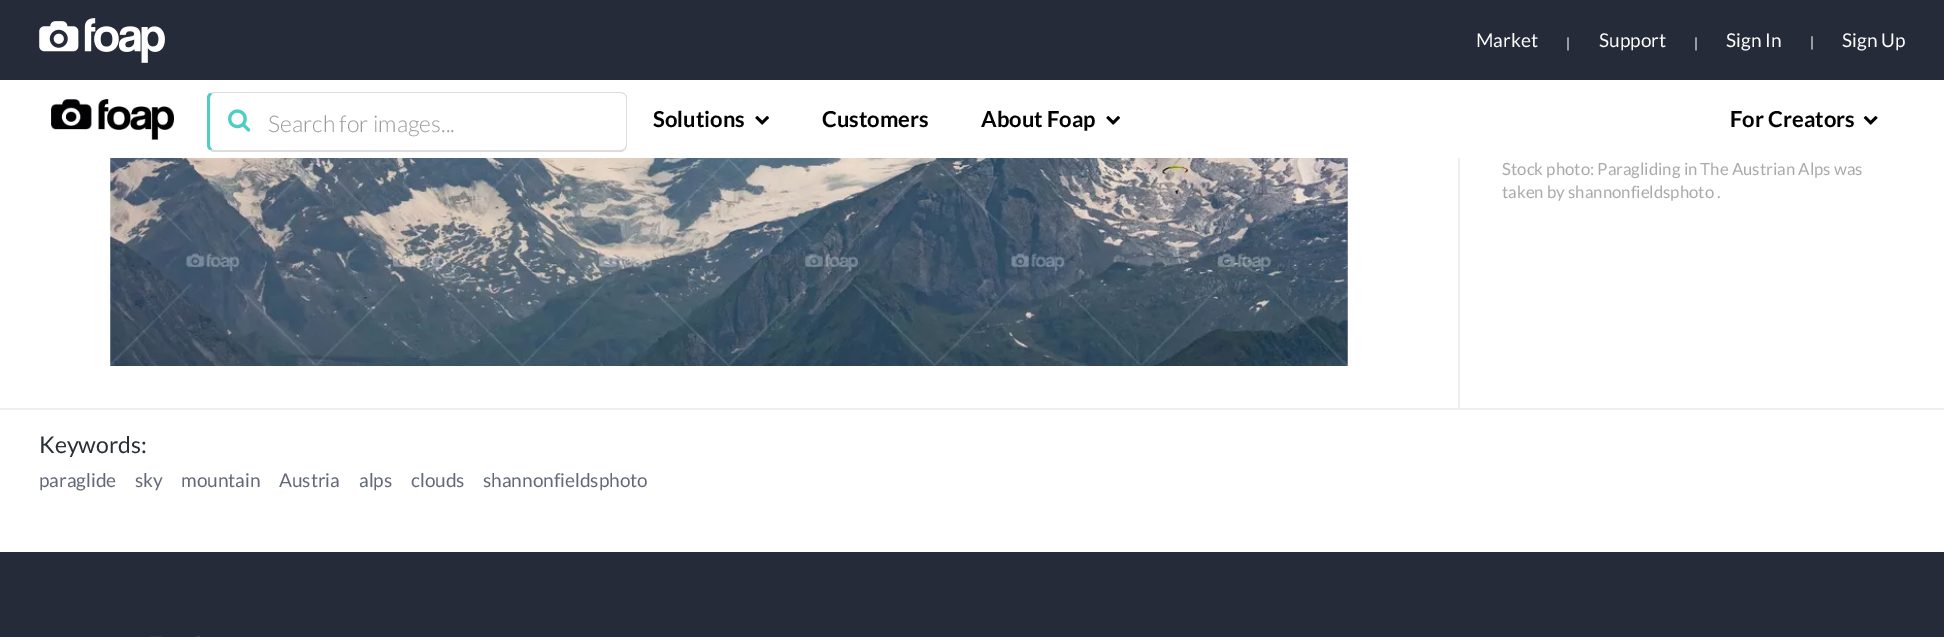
%!PS-Adobe-3.0
%%BoundingBox: 0 0 1944 637
%%LanguageLevel: 3
%%Pages: 1
%%EndComments
%%BeginProlog
/setink { dup -16 bitshift 255 div exch dup -8 bitshift 255 and 255 div exch 255 and 255 div setrgbcolor } def
/usefont { [ exch dup neg 0 0 3 -1 roll 0 0 ] selectfont } def
/drawimage { 5 dict begin { /h /w /y /x /name } { exch def } forall
  gsave x y translate w h scale
  w h 8 [w 0 0 h 0 0] name (r) file false 3 colorimage grestore end } def
%%EndProlog
%%BeginSetup
<< /PageSize [1944 637] >> setpagedevice
%%EndSetup
%%Page: 1 1
0 637 translate 1 -1 scale
4 setmiterlimit
16#FFFFFF setink
0 0 1944 637 rectfill
16#262B39 setink
0 0 1944 80 rectfill
(img1.raw) 39 18 126 45 drawimage
/Lato-Regular 19 usefont
16#FFFFFF setink
1476 47 moveto (Market) show
/Lato-Regular 14 usefont
1566 48 moveto (|) show
/Lato-Regular 19 usefont
1599 47 moveto (Support) show
/Lato-Regular 14 usefont
1694 48 moveto (|) show
/Lato-Regular 19 usefont
1726 47 moveto (Sign In) show
/Lato-Regular 14 usefont
1810 47 moveto (|) show
/Lato-Regular 19 usefont
1842 47 moveto (Sign Up) show
(img2.raw) 51 99 123 41 drawimage
(img3.raw) 228 109 23 23 drawimage
16#DDDDDD setink
214 92 moveto 210 93 lineto 212 94 lineto 214 93 lineto 621 93 lineto 624 94 lineto 625 94 lineto 624 93 622 92 620 92 curveto closepath fill
625 94 moveto 626 95 627 96 627 98 curveto 627 145 lineto 627 146 626 148 625 150 curveto 624 149 lineto 625 148 626 146 626 145 curveto 626 98 lineto 626 96 625 95 624 94 curveto closepath fill
212 152 moveto 210 150 lineto 212 149 lineto 214 150 lineto 621 150 lineto 624 149 lineto 625 150 lineto 622 152 lineto closepath fill
16#4ECDC4 setink
207 98 moveto 207 145 lineto 207 147 208 149 210 150 curveto 212 149 lineto 211 148 210 147 210 145 curveto 210 98 lineto 210 96 211 95 212 94 curveto 210 93 lineto 208 94 207 96 207 98 curveto closepath fill
/Lato-Light 23 usefont
16#999999 setink
268 132 moveto (Search for images...) show
/Lato-Bold 22 usefont
16#000000 setink
653 127 moveto (Solutions) show
(img4.raw) 755 116 14 9 drawimage
822 127 moveto (Customers) show
981 127 moveto (About Foap) show
(img4.raw) 1106 116 14 9 drawimage
1730 127 moveto (For Creators) show
(img5.raw) 1863 116 15 9 drawimage
16#EEEEEE setink
0 408 1944 2 rectfill
(img6.raw) 110 158 1238 208 drawimage
1458 158 2 250 rectfill
/Lato-Regular 16.8 usefont
16#AAAAAA setink
1502 175 moveto (Stock photo: Paragliding in The Austrian Alps was) show
1502 198 moveto (taken by shannonfieldsphoto .) show
/Lato-Regular 23 usefont
16#282F35 setink
39 453 moveto (Keywords:) show
/Lato-Regular 19 usefont
16#636978 setink
[
    [(paraglide) 39 487]
    [(sky) 135 487]
    [(mountain) 181 487]
    [(Austria) 279 487]
    [(alps) 359 487]
    [(clouds) 411 487]
    [(shannonfieldsphoto) 483 487]
] { aload pop moveto show } forall
16#262B39 setink
0 552 1944 85 rectfill
(img7.raw) 150 636 50 1 drawimage
showpage
%%EOF
